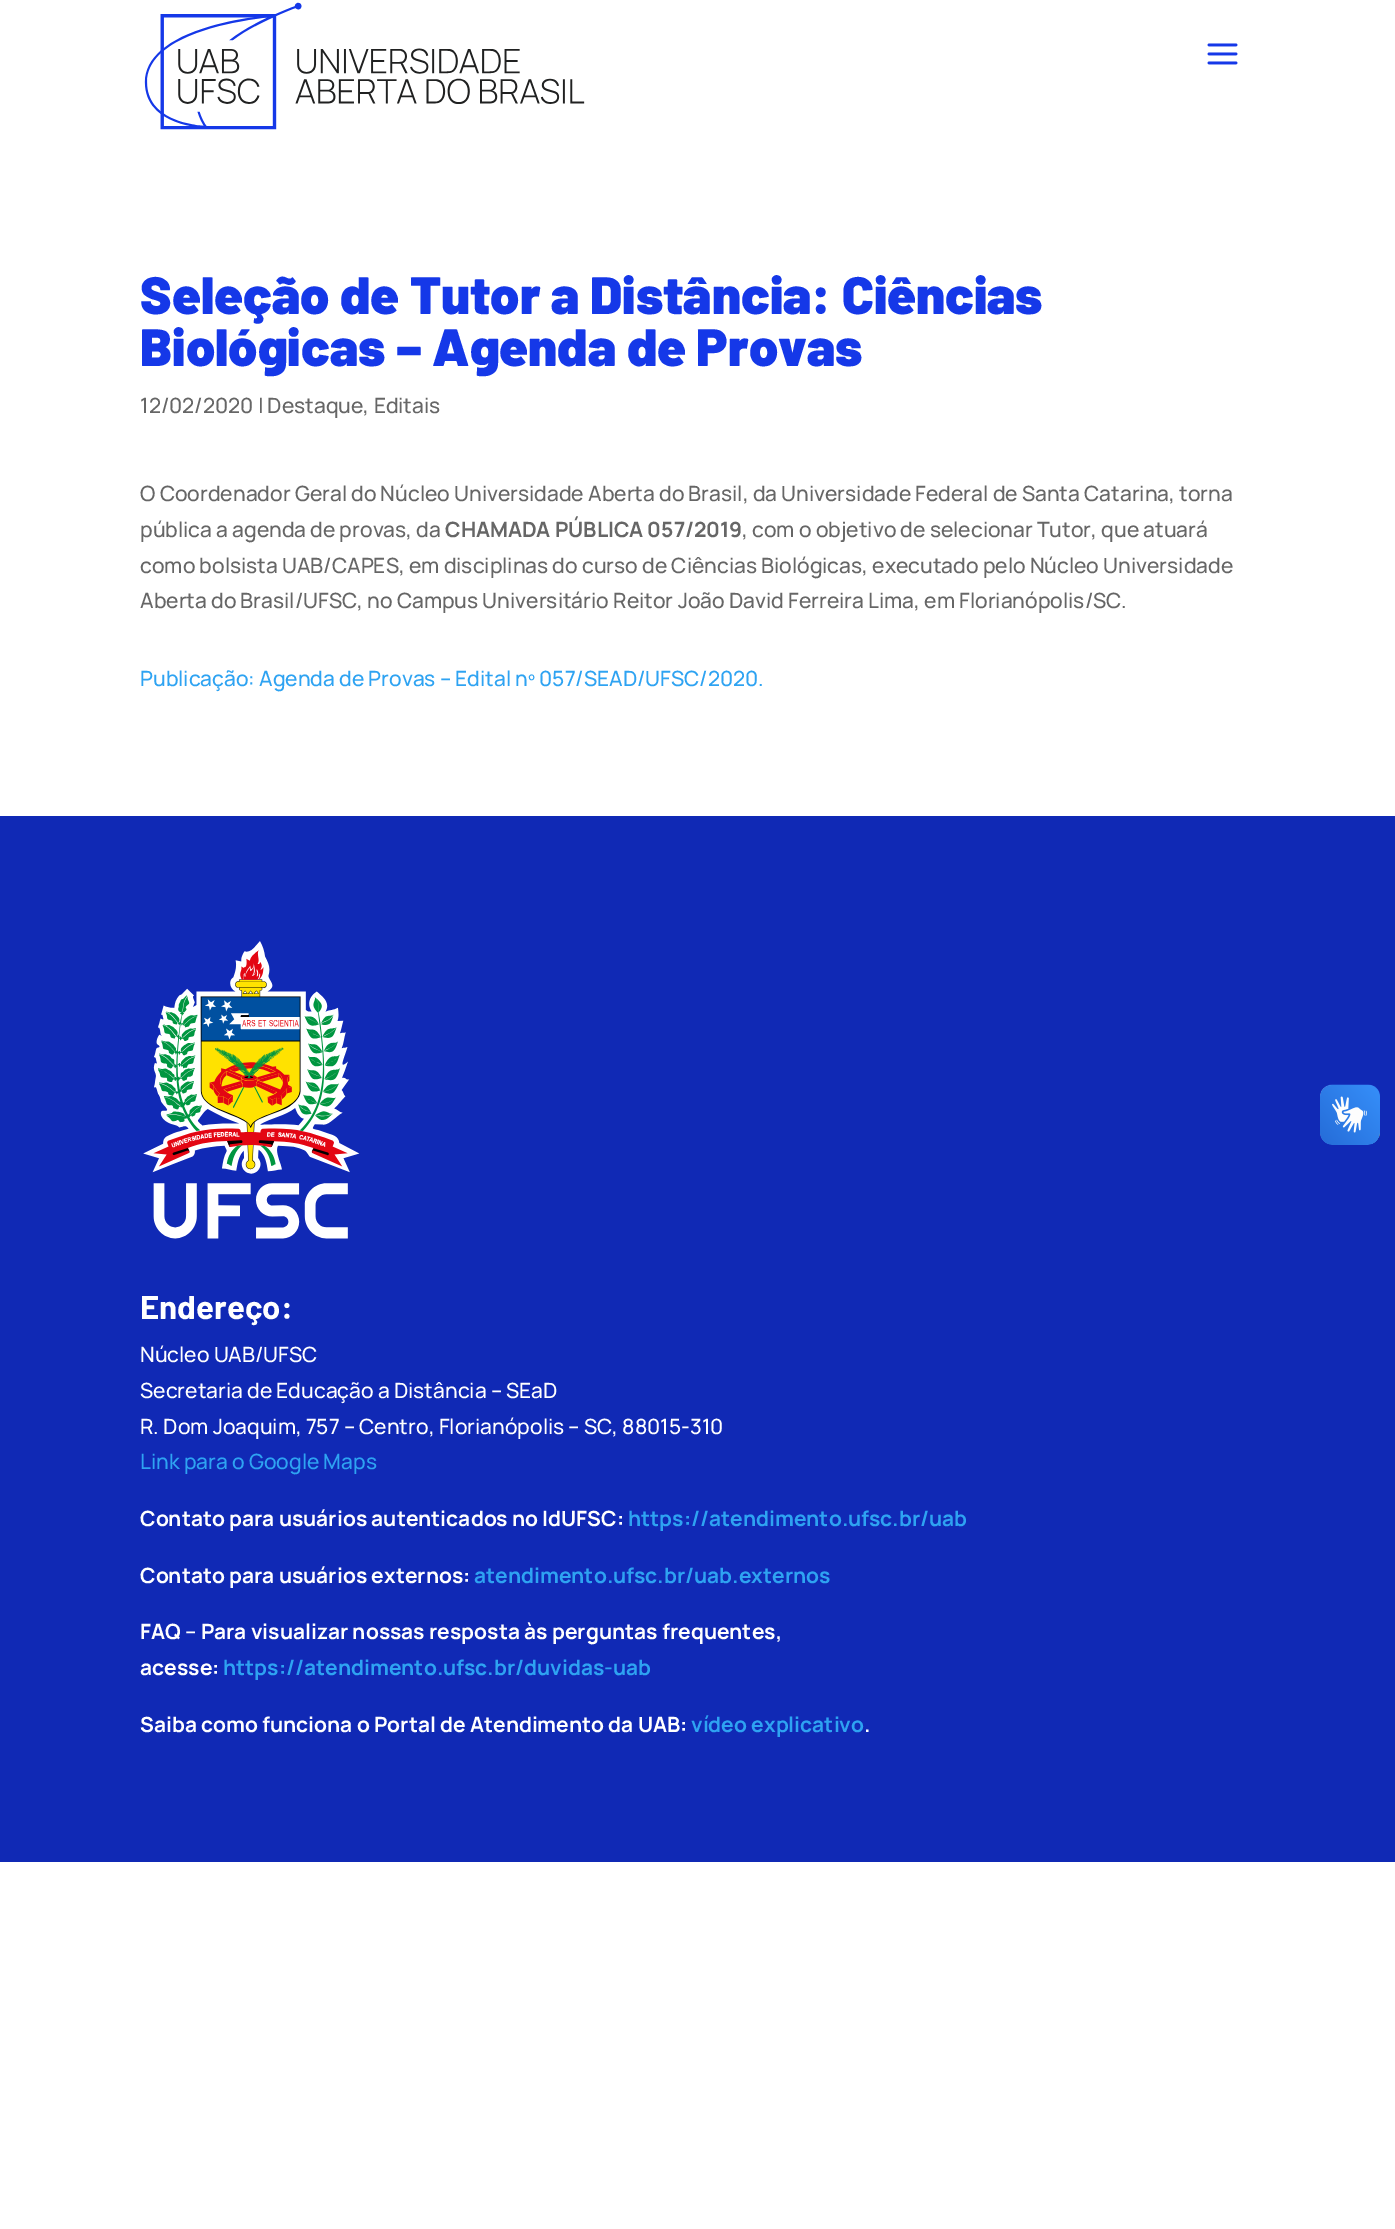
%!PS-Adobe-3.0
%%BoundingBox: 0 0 1395 2229
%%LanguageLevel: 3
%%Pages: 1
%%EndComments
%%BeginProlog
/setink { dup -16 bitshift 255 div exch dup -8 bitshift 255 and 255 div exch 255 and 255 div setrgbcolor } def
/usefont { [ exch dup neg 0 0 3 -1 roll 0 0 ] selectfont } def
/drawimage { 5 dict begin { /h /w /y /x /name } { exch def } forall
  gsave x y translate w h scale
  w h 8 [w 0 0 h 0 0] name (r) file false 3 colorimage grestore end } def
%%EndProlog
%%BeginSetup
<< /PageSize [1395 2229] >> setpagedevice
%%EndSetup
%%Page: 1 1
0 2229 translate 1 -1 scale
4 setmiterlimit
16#FFFFFF setink
0 0 1395 2229 rectfill
(img1.raw) 144 2 441 128 drawimage
(img2.raw) 1207 43 31 22 drawimage
/Barlow-Black 52.5 usefont
16#1538E8 setink
140 314 moveto (Seleção de Tutor a Distância: Ciências) show
140 366 moveto (Biológicas – Agenda de Provas) show
/Manrope-Medium 21 usefont
16#666666 setink
[
    [(12/02/2020 | Destaque, Editais) 140 413]
    [(O Coordenador Geral do Núcleo Universidade Aberta do Brasil, da Universidade Federal de Santa Catarina, torna) 140 501]
    [(pública a agenda de provas, da) 140 537]
] { aload pop moveto show } forall
/Manrope-Bold 21 usefont
445 537 moveto (CHAMADA PÚBLICA 057/2019) show
/Manrope-Medium 21 usefont
[
    [(, com o objetivo de selecionar Tutor, que atuará) 742 537]
    [(como bolsista UAB/CAPES, em disciplinas do curso de Ciências Biológicas, executado pelo Núcleo Universidade) 140 573]
    [(Aberta do Brasil/UFSC, no Campus Universitário Reitor João David Ferreira Lima, em Florianópolis/SC.) 140 608]
] { aload pop moveto show } forall
16#2EA3F2 setink
140 686 moveto (Publicação: Agenda de Provas – Edital nº 057/SEAD/UFSC/2020.) show
16#1029B5 setink
0 816 1395 1046 rectfill
(img3.raw) 143 941 217 298 drawimage
/Barlow-Bold 33 usefont
16#FFFFFF setink
140 1319 moveto (Endereço:) show
/Manrope-Medium 21 usefont
[
    [(Núcleo UAB/UFSC) 140 1362]
    [(Secretaria de Educação a Distância – SEaD) 140 1398]
    [(R. Dom Joaquim, 757 – Centro, Florianópolis – SC, 88015-310) 140 1434]
] { aload pop moveto show } forall
16#2EA3F2 setink
140 1469 moveto (Link para o Google Maps) show
/Manrope-Bold 21 usefont
16#FFFFFF setink
140 1526 moveto (Contato para usuários autenticados no IdUFSC:) show
16#2EA3F2 setink
628 1526 moveto (https://atendimento.ufsc.br/uab) show
16#FFFFFF setink
140 1583 moveto (Contato para usuários externos:) show
16#2EA3F2 setink
474 1583 moveto (atendimento.ufsc.br/uab.externos) show
16#FFFFFF setink
140 1639 moveto (FAQ – Para visualizar nossas resposta às perguntas frequentes,) show
140 1675 moveto (acesse:) show
16#2EA3F2 setink
223 1675 moveto (https://atendimento.ufsc.br/duvidas-uab) show
16#FFFFFF setink
140 1732 moveto (Saiba como funciona o Portal de Atendimento da UAB:) show
16#2EA3F2 setink
691 1732 moveto (vídeo explicativo) show
16#FFFFFF setink
864 1732 moveto (.) show
(img4.raw) 1320 1084 60 61 drawimage
(img5.raw) 1320 1085 60 60 drawimage
showpage
%%EOF
